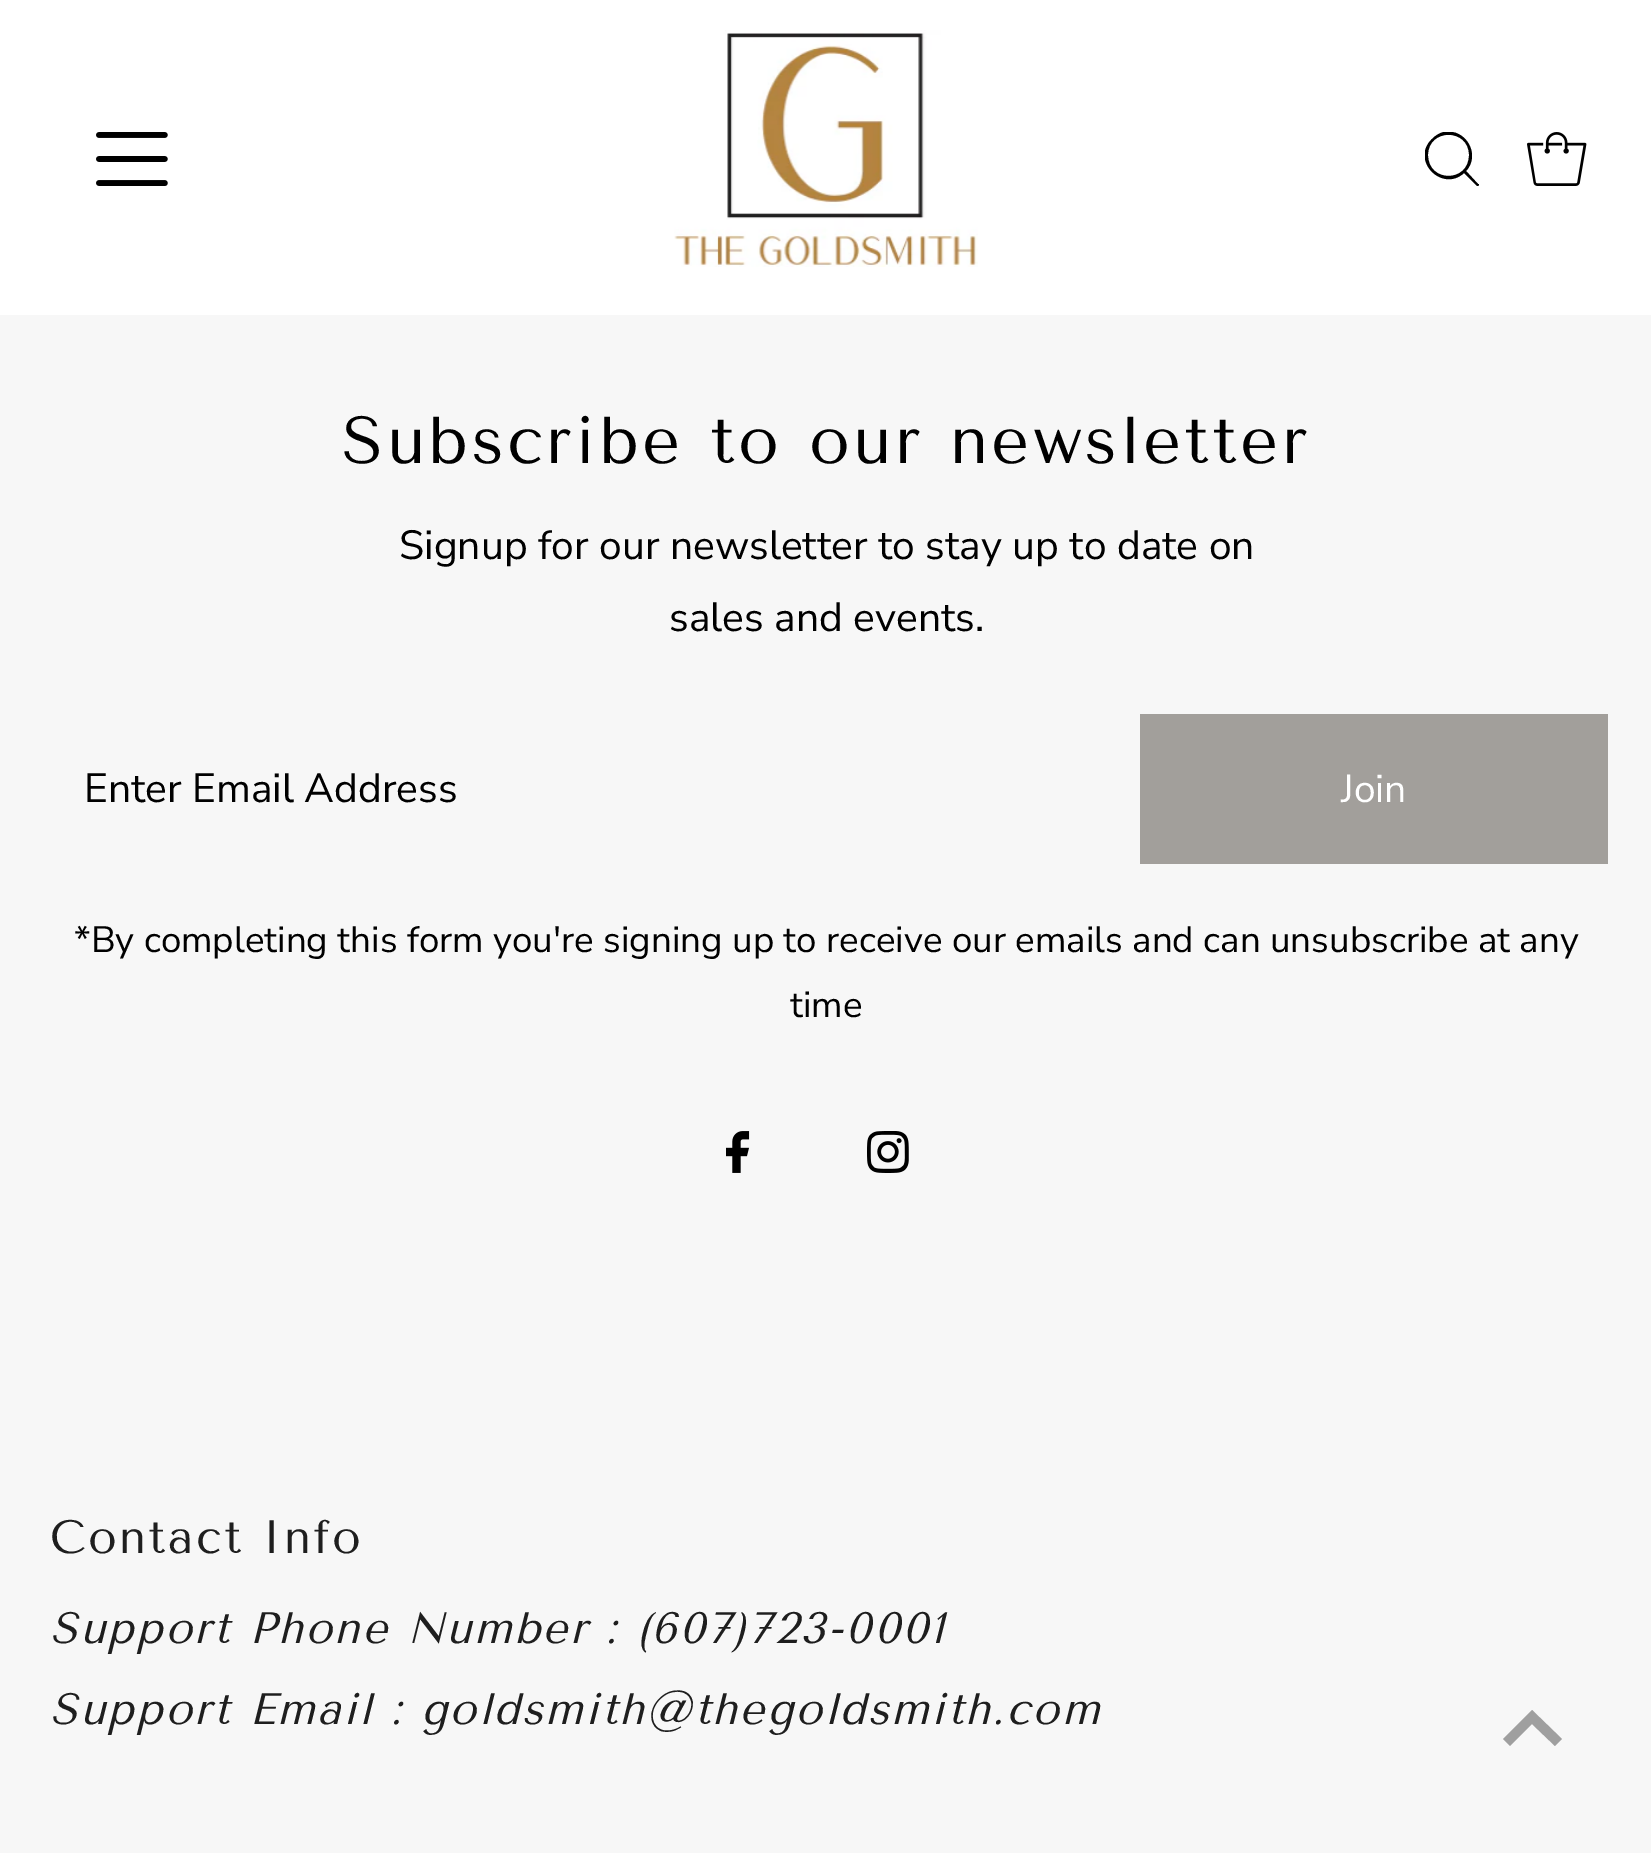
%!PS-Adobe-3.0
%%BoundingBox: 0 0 1651 1853
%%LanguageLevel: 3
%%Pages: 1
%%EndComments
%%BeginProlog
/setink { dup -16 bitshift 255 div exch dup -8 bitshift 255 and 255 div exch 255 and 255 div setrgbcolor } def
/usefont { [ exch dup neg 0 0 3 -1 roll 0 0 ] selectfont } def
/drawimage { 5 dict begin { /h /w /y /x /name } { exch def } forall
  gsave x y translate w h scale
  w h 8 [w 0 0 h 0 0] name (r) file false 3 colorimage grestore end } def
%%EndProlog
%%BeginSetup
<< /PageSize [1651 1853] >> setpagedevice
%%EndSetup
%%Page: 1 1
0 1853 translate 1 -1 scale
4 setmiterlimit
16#F7F7F7 setink
0 0 1651 1853 rectfill
16#FFFFFF setink
0 0 1651 315 rectfill
(img1.raw) 96 132 72 54 drawimage
(img2.raw) 674 30 304 237 drawimage
gsave
1425 132 54 54 rectclip
16#000000 setink
1478 184 moveto 1466 171 lineto 1481 155 1466 128 1444 132 curveto 1439 133 1435 136 1432 139 curveto 1410 160 1442 193 1464 173 curveto 1477 186 lineto 1479 186 1480 184 1478 184 curveto closepath 1428 155 moveto 1428 128 1469 128 1469 155 curveto 1469 183 1428 183 1428 155 curveto closepath fill
grestore
(img3.raw) 1527 132 60 54 drawimage
/TenorSans-Regular 66.25 usefont
16#000000 setink
342 463 moveto 3.3 0 (Subscribe to our newsletter) ashow
/NunitoSans-Regular 40.8 usefont
[
    [(Signup for our newsletter to stay up to date on) 399 559]
    [(sales and events.) 669 631]
    [(Enter Email Address) 84 802]
] { aload pop moveto show } forall
16#A29F9B setink
1140 714 468 150 rectfill
/NunitoSans-Regular 39 usefont
16#FFFFFF setink
1341 802 moveto (Join) show
/NunitoSans-Regular 36.7 usefont
16#000000 setink
74 952 moveto (*By completing this form you're signing up to receive our emails and can unsubscribe at any) show
790 1017 moveto (time) show
(img4.raw) 726 1131 24 42 drawimage
(img5.raw) 867 1131 42 42 drawimage
/TenorSans-Regular 46.75 usefont
16#1E1E1E setink
50 1553 moveto 2.3 0 (Contact Info) ashow
/TenorSans-Italic 43.8 usefont
50 1643 moveto 2.2 0 (Support Phone Number : \(607\)723-0001) ashow
50 1724 moveto 2.2 0 (Support Email : goldsmith@thegoldsmith.com) ashow
16#9F9F9F setink
1532 1710 moveto 1503 1739 lineto 1510 1746 lineto 1532 1724 lineto 1555 1746 lineto 1562 1739 lineto closepath fill
showpage
%%EOF
